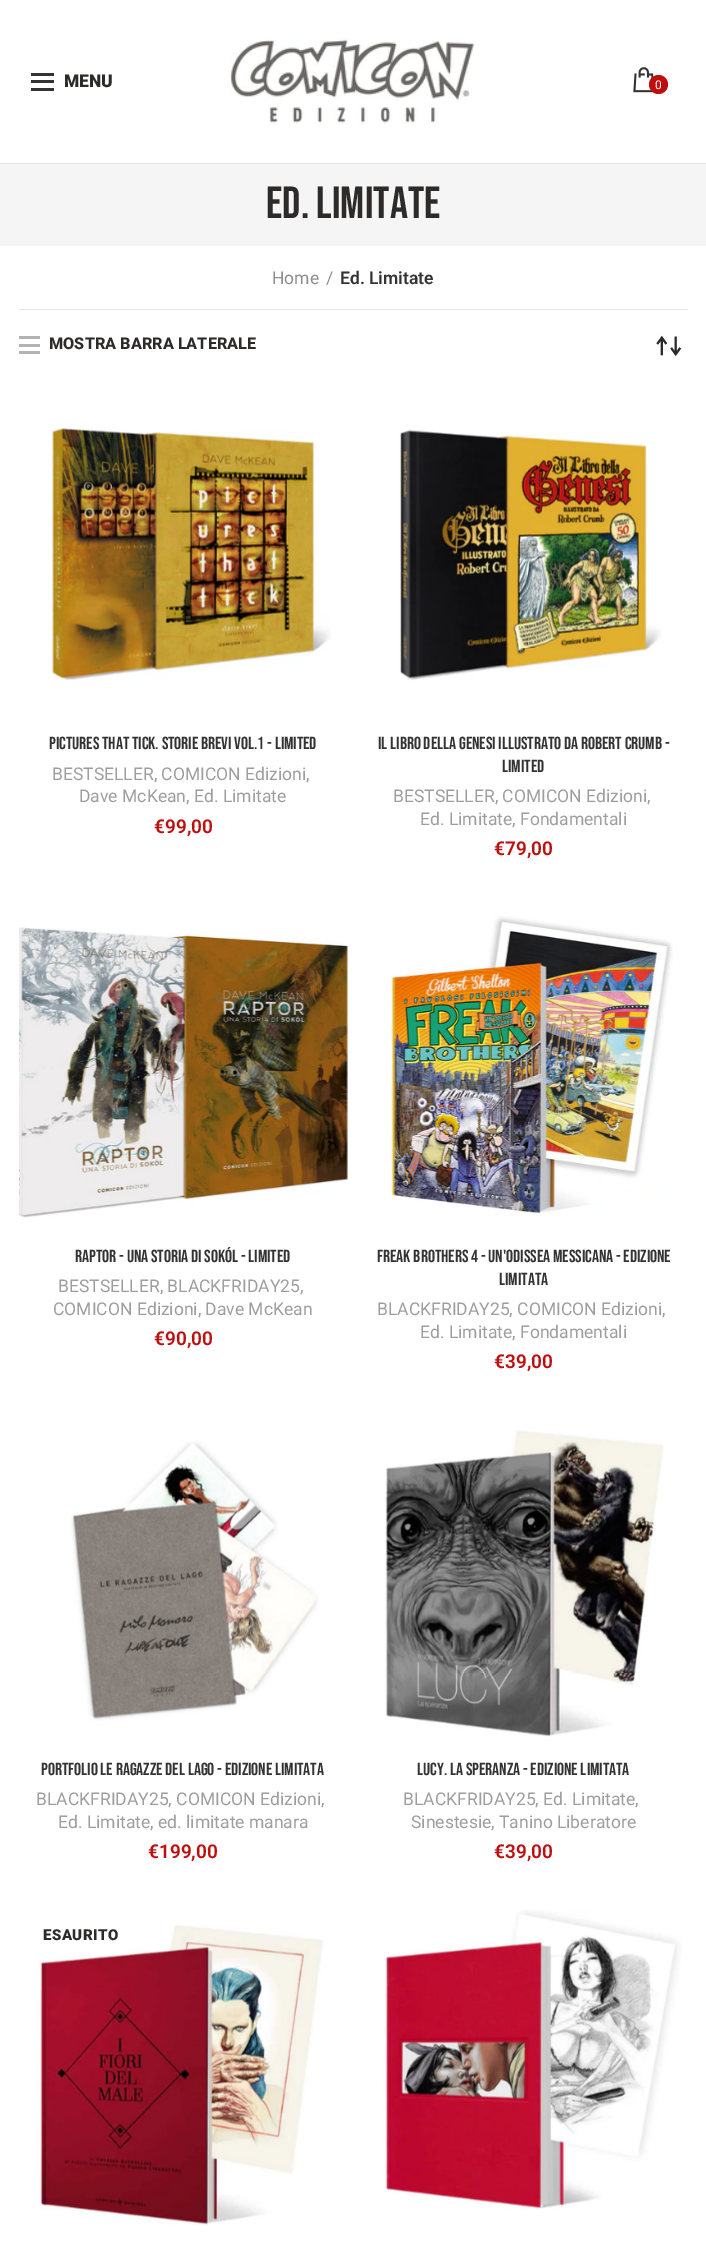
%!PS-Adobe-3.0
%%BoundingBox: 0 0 706 2250
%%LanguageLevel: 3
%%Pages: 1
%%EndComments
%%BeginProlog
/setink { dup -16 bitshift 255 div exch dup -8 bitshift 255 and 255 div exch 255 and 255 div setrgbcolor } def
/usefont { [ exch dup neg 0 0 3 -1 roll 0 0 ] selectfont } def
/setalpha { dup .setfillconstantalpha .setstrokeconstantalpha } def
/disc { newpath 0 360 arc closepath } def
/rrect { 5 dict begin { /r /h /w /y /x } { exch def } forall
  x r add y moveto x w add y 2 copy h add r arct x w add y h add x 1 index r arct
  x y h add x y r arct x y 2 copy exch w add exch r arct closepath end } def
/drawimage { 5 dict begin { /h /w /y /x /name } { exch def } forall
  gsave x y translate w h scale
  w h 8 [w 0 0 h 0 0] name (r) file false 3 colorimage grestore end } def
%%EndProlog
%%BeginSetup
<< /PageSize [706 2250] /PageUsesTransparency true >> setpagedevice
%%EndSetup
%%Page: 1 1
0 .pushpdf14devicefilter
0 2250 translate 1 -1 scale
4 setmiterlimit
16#FFFFFF setink
0 0 706 2250 rectfill
[
    [0 163 706 1 16#E6E6E6]
    [31 80 23 3 16#333333]
    [31 73 23 3 16#333333]
    [31 88 23 3 16#333333]
] { aload pop setink rectfill } forall
/Roboto-Black 17.5 usefont
16#2D2A2A setink
64 87 moveto (MENU) show
(img1.raw) 229 38 245 88 drawimage
(img2.raw) 633 67 22 26 drawimage
16#BE0E0E setink
658.5 84.5 9.5 disc fill
/Roboto-Regular 12 usefont
16#FFFFFF setink
655 89 moveto (0) show
16#F5F5F5 setink
0 164 706 82 rectfill
/BebasNeue-Regular 45 usefont
16#2D2A2A setink
266 218 moveto (Ed. Limitate) show
16#E6E6E6 setink
19 309 669 1 rectfill
/Roboto-Regular 17.5 usefont
16#8E8E8E setink
272 284 moveto (Home) show
326 284 moveto (/) show
/Roboto-SemiBold 17.5 usefont
16#333333 setink
340 284 moveto (Ed. Limitate) show
[
    [19 344 21 3 16#B3B3B3]
    [19 336 21 3 16#B3B3B3]
    [19 351 21 3 16#B3B3B3]
] { aload pop setink rectfill } forall
/Roboto-ExtraBold 16.25 usefont
16#2D2A2A setink
49 349 moveto (MOSTRA BARRA LATERALE) show
(img3.raw) 656 335 26 22 drawimage
(img4.raw) 51 426 280 255 drawimage
/BebasNeue-Regular 17.5 usefont
16#333333 setink
49 749 moveto (Pictures That Tick. Storie brevi Vol.1 - Limited) show
/Roboto-Regular 17.5 usefont
16#9E9E9E setink
52 780 moveto (BESTSELLER, COMICON Edizioni,) show
79 802 moveto (Dave McKean, Ed. Limitate) show
/Roboto-SemiBold 19 usefont
16#BE0E0E setink
154 833 moveto (€99,00) show
(img5.raw) 399 429 262 252 drawimage
/BebasNeue-Regular 17.5 usefont
16#333333 setink
378 749 moveto (Il Libro della Genesi illustrato da Robert Crumb -) show
502 772 moveto (Limited) show
/Roboto-Regular 17.5 usefont
16#9E9E9E setink
393 802 moveto (BESTSELLER, COMICON Edizioni,) show
420 825 moveto (Ed. Limitate, Fondamentali) show
/Roboto-SemiBold 19 usefont
16#BE0E0E setink
494 855 moveto (€79,00) show
(img6.raw) 19 927 329 291 drawimage
/BebasNeue-Regular 17.5 usefont
16#333333 setink
75 1262 moveto (Raptor - Una storia di Sokól - Limited) show
/Roboto-Regular 17.5 usefont
16#9E9E9E setink
58 1292 moveto (BESTSELLER, BLACKFRIDAY25,) show
53 1315 moveto (COMICON Edizioni, Dave McKean) show
/Roboto-SemiBold 19 usefont
16#BE0E0E setink
154 1345 moveto (€90,00) show
(img7.raw) 390 916 283 298 drawimage
/BebasNeue-Regular 17.5 usefont
16#333333 setink
377 1262 moveto (Freak Brothers 4 - Un'Odissea messicana - Edizione) show
499 1285 moveto (Limitata) show
/Roboto-Regular 17.5 usefont
16#9E9E9E setink
377 1315 moveto (BLACKFRIDAY25, COMICON Edizioni,) show
420 1338 moveto (Ed. Limitate, Fondamentali) show
/Roboto-SemiBold 19 usefont
16#BE0E0E setink
494 1368 moveto (€39,00) show
(img8.raw) 70 1441 249 280 drawimage
/BebasNeue-Regular 17.5 usefont
16#333333 setink
41 1775 moveto (Portfolio Le Ragazze del Lago - Edizione limitata) show
/Roboto-Regular 17.5 usefont
16#9E9E9E setink
36 1805 moveto (BLACKFRIDAY25, COMICON Edizioni,) show
58 1828 moveto (Ed. Limitate, ed. limitate manara) show
/Roboto-SemiBold 19 usefont
16#BE0E0E setink
148 1858 moveto (€199,00) show
(img9.raw) 385 1430 279 307 drawimage
/BebasNeue-Regular 17.5 usefont
16#333333 setink
417 1775 moveto (Lucy. La speranza - Edizione Limitata) show
/Roboto-Regular 17.5 usefont
16#9E9E9E setink
403 1805 moveto (BLACKFRIDAY25, Ed. Limitate,) show
411 1828 moveto (Sinestesie, Tanino Liberatore) show
/Roboto-SemiBold 19 usefont
16#BE0E0E setink
494 1858 moveto (€39,00) show
(img10.raw) 39 1925 285 301 drawimage
0.9 setalpha
16#FFFFFF setink
28 1918 106 37 18.5 rrect fill
/Roboto-Black 15 usefont
1 setalpha
16#2D2A2A setink
43 1940 moveto 0.5 0 (ESAURITO) ashow
(img11.raw) 383 1910 299 300 drawimage
.poppdf14devicefilter showpage
%%EOF
